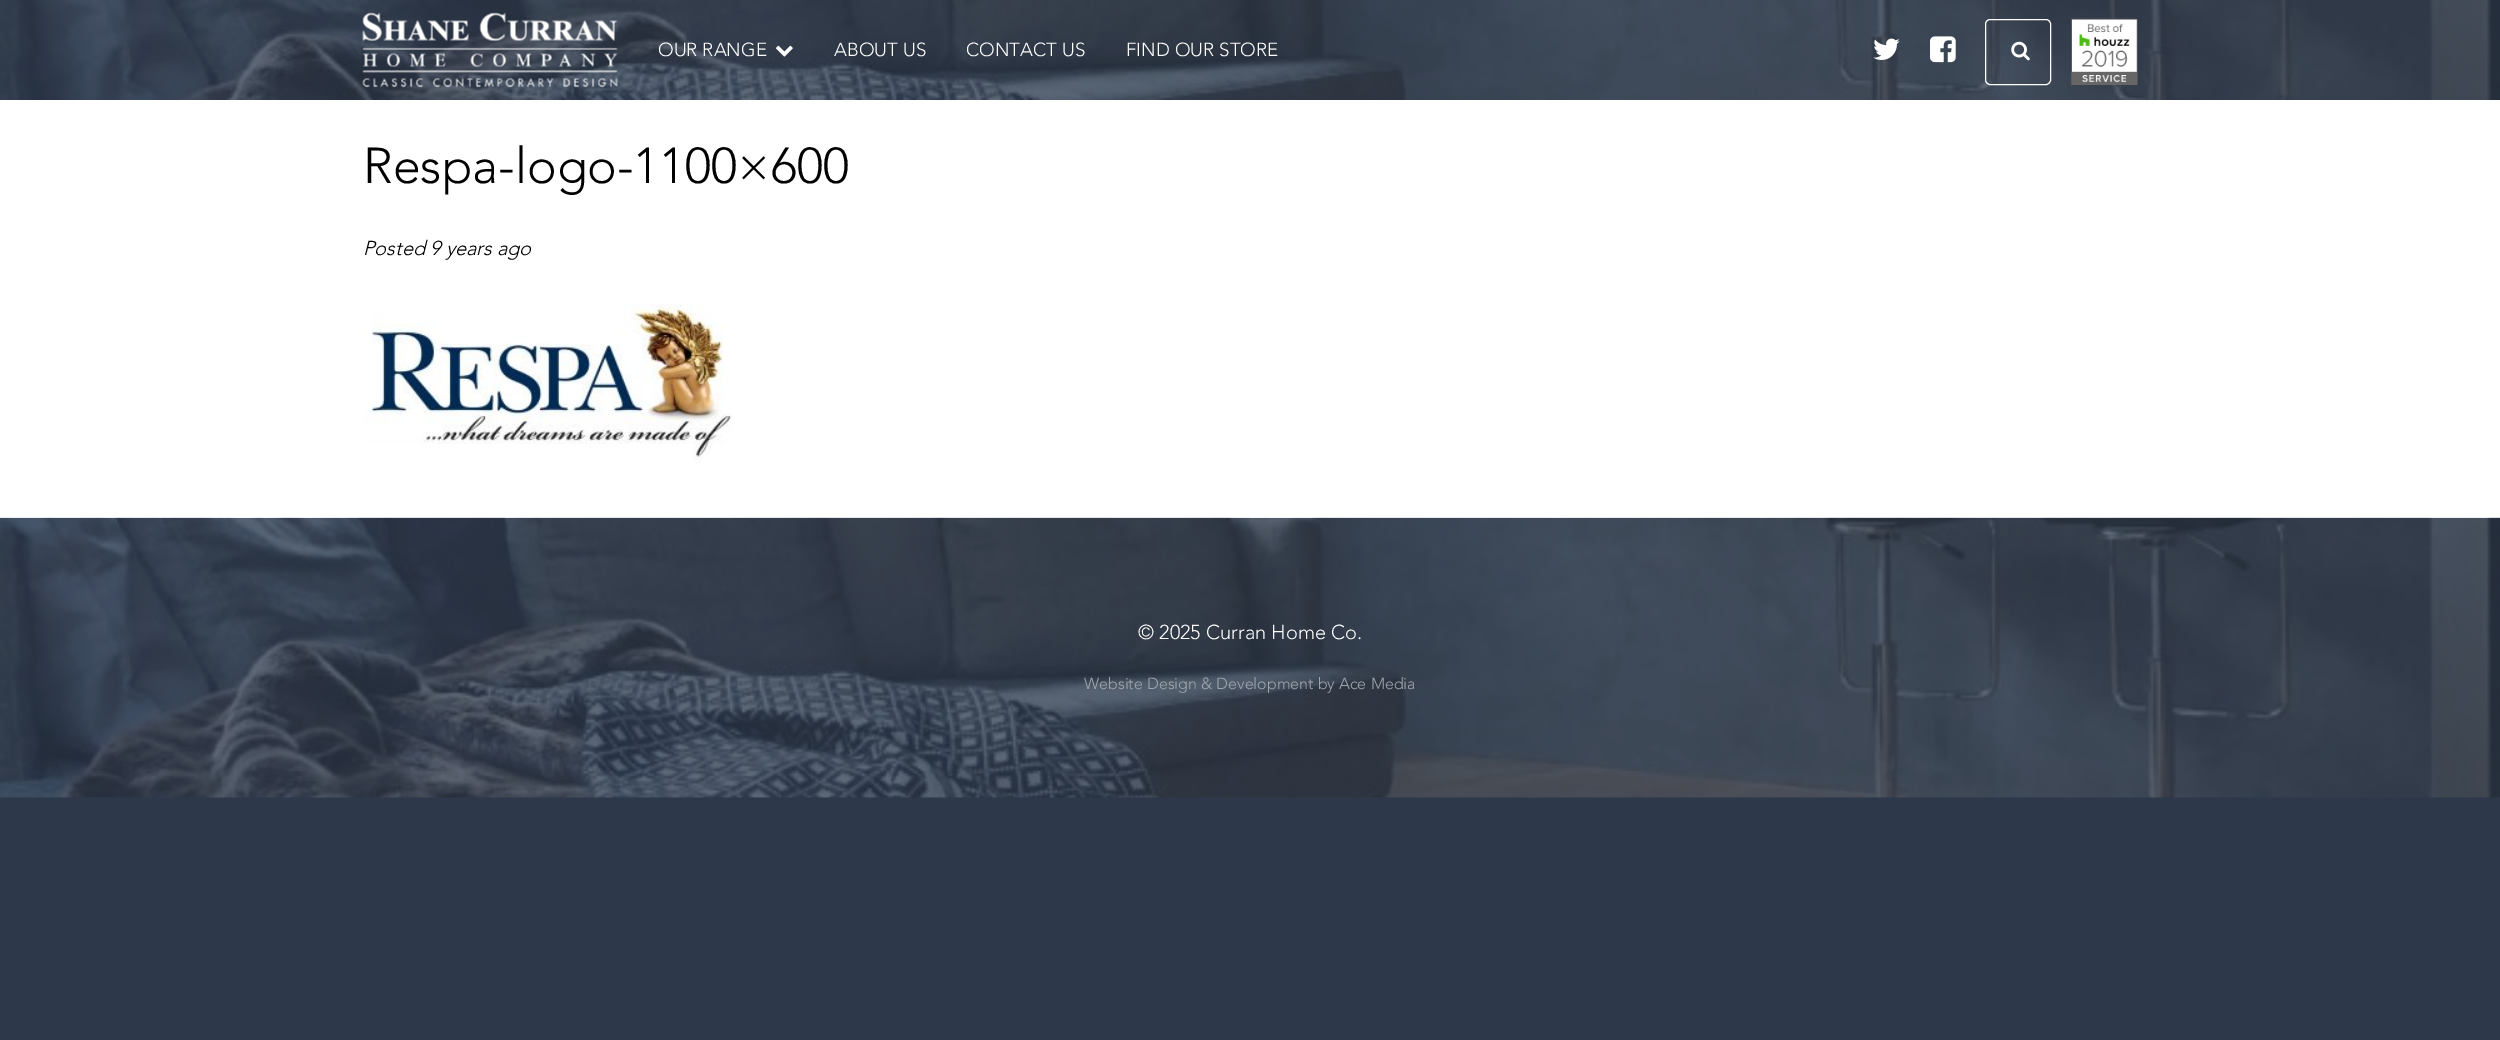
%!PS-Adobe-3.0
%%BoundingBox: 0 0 2500 1040
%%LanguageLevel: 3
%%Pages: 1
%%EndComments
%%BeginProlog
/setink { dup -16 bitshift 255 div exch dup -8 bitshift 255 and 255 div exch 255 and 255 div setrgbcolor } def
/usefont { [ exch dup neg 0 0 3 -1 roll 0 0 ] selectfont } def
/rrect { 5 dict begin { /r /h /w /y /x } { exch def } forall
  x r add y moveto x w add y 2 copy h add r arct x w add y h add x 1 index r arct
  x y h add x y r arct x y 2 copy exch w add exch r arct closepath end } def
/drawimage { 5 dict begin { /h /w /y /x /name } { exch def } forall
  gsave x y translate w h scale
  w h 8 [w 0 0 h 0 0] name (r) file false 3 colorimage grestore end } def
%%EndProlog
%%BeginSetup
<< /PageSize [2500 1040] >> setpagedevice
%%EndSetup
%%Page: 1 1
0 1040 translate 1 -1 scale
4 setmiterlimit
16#2D394B setink
0 0 2500 1040 rectfill
16#FFFFFF setink
0 100 2500 418 rectfill
(img1.raw) 0 0 2500 100 drawimage
(img2.raw) 362 12 256 76 drawimage
/Avenir-Light 18.75 usefont
658 56 moveto (OUR RANGE) show
(img3.raw) 776 45 17 12 drawimage
[
    [(ABOUT US) 834 56]
    [(CONTACT US) 966 56]
    [(FIND OUR STORE) 1126 56]
] { aload pop moveto show } forall
(img4.raw) 1873 38 27 22 drawimage
(img5.raw) 1930 36 26 27 drawimage
1985.5 19.5 65 65 4.5 rrect stroke
(img6.raw) 2011 41 19 20 drawimage
(img7.raw) 2071 18 67 67 drawimage
/Avenir-Light 50 usefont
16#000000 setink
363 183 moveto (Respa-logo-1100×600) show
/Avenir-LightItalic 20 usefont
363 255 moveto (Posted 9 years ago) show
(img8.raw) 363 304 370 158 drawimage
(img9.raw) 0 517 2500 281 drawimage
/Avenir-Light 20 usefont
16#FFFFFF setink
1138 639 moveto (© 2025 Curran Home Co.) show
/Avenir-Light 16 usefont
16#A1A6AD setink
1084 689 moveto (Website Design & Development by Ace Media) show
showpage
%%EOF
